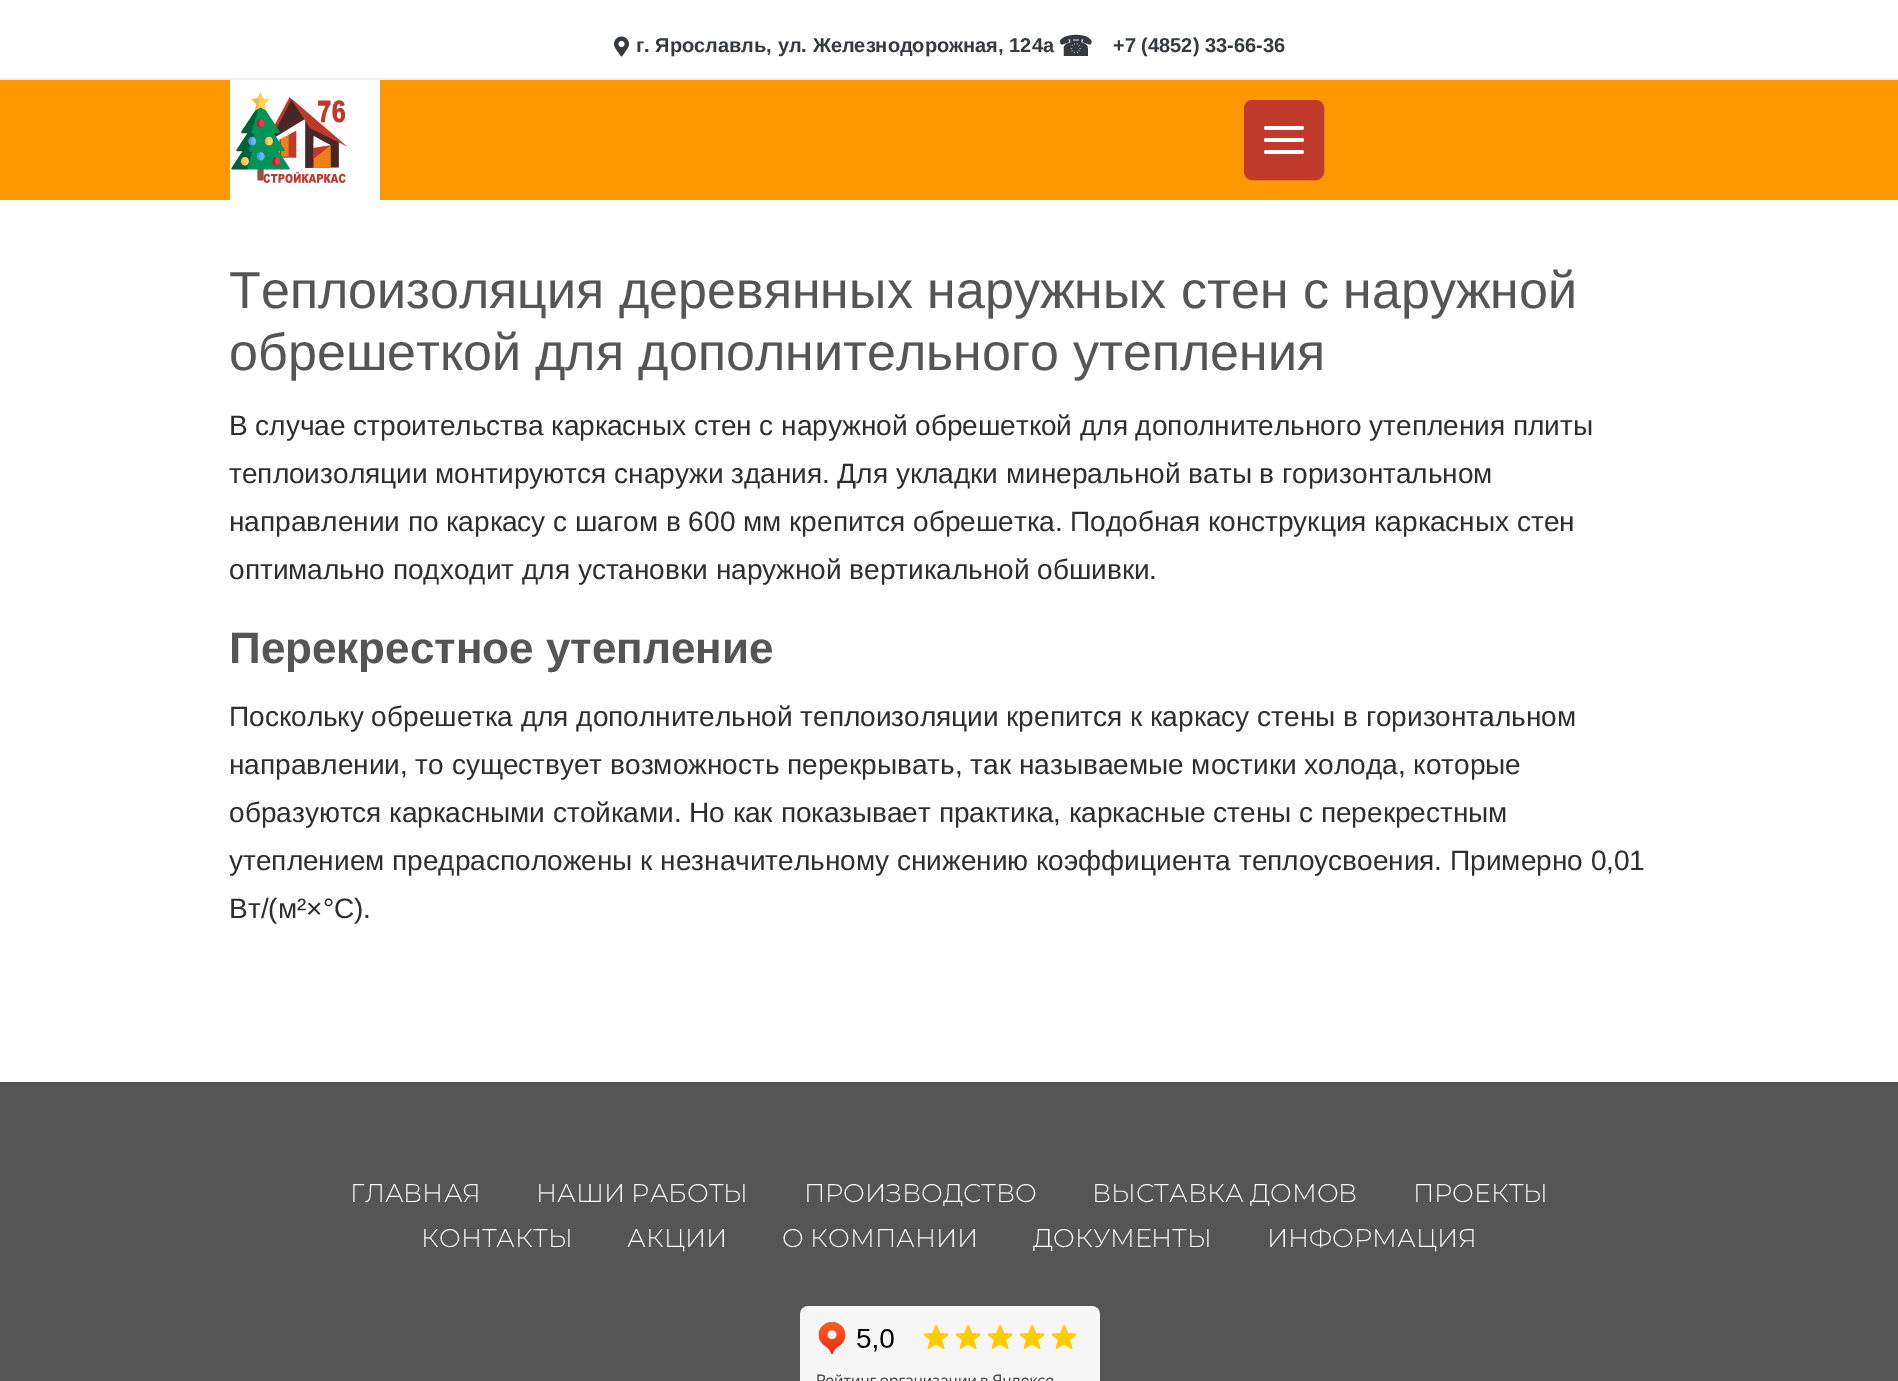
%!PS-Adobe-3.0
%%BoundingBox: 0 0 1898 1381
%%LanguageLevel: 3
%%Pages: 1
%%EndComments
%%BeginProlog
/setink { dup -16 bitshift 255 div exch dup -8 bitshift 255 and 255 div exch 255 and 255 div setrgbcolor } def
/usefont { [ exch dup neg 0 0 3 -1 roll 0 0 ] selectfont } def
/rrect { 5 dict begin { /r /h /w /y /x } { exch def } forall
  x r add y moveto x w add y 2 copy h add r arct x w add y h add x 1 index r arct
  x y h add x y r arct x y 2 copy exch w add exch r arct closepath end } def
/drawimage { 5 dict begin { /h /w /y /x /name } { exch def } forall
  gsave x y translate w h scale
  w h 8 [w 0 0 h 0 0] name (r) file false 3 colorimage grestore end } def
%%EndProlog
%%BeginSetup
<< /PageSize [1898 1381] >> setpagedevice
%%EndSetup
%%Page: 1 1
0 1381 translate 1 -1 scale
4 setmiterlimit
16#FFFFFF setink
0 0 1898 1381 rectfill
16#EEEEEE setink
0 78 1898 2 rectfill
(img1.raw) 614 36 15 21 drawimage
/LiberationSans-Bold 20 usefont
16#343A40 setink
636 52 moveto (г. Ярославль, ул. Железнодорожная, 124а) show
/DejaVuSans-Bold 28 usefont
1058 56 moveto (☎) show
/LiberationSans-Bold 20 usefont
1113 52 moveto (+7 \(4852\) 33-66-36) show
16#FF9800 setink
0 80 1898 120 rectfill
(img2.raw) 230 80 150 120 drawimage
16#C0392B setink
1246 102 76 76 6 rrect gsave fill grestore
4 setlinewidth
stroke
16#FFFFFF setink
1264 126 40 4 2 rrect fill
1264 138 40 4 2 rrect fill
1264 150 40 4 2 rrect fill
/LiberationSans-Regular 52 usefont
16#555555 setink
229 308 moveto (Теплоизоляция деревянных наружных стен с наружной) show
229 370 moveto (обрешеткой для дополнительного утепления) show
/LiberationSans-Regular 28 usefont
16#2E2E2E setink
[
    [(В случае строительства каркасных стен с наружной обрешеткой для дополнительного утепления плиты) 229 435]
    [(теплоизоляции монтируются снаружи здания. Для укладки минеральной ваты в горизонтальном) 229 483]
    [(направлении по каркасу с шагом в 600 мм крепится обрешетка. Подобная конструкция каркасных стен) 229 531]
    [(оптимально подходит для установки наружной вертикальной обшивки.) 229 579]
] { aload pop moveto show } forall
/LiberationSans-Bold 44 usefont
16#555555 setink
229 663 moveto (Перекрестное утепление) show
/LiberationSans-Regular 28 usefont
16#2E2E2E setink
[
    [(Поскольку обрешетка для дополнительной теплоизоляции крепится к каркасу стены в горизонтальном) 229 726]
    [(направлении, то существует возможность перекрывать, так называемые мостики холода, которые) 229 774]
    [(образуются каркасными стойками. Но как показывает практика, каркасные стены с перекрестным) 229 822]
    [(утеплением предрасположены к незначительному снижению коэффициента теплоусвоения. Примерно 0,01) 229 870]
    [(Вт/\(м²×°С\).) 229 918]
] { aload pop moveto show } forall
16#555555 setink
0 1082 1898 299 rectfill
/Montserrat-Light 25.6 usefont
16#FFFFFF setink
[
    [(ГЛАВНАЯ) 350 1202]
    [(НАШИ РАБОТЫ) 536 1202]
    [(ПРОИЗВОДСТВО) 804 1202]
    [(ВЫСТАВКА ДОМОВ) 1092 1202]
    [(ПРОЕКТЫ) 1413 1202]
    [(КОНТАКТЫ) 421 1247]
    [(АКЦИИ) 627 1247]
    [(О КОМПАНИИ) 782 1247]
    [(ДОКУМЕНТЫ) 1033 1247]
    [(ИНФОРМАЦИЯ) 1267 1247]
] { aload pop moveto show } forall
(img3.raw) 800 1306 300 75 drawimage
showpage
%%EOF
